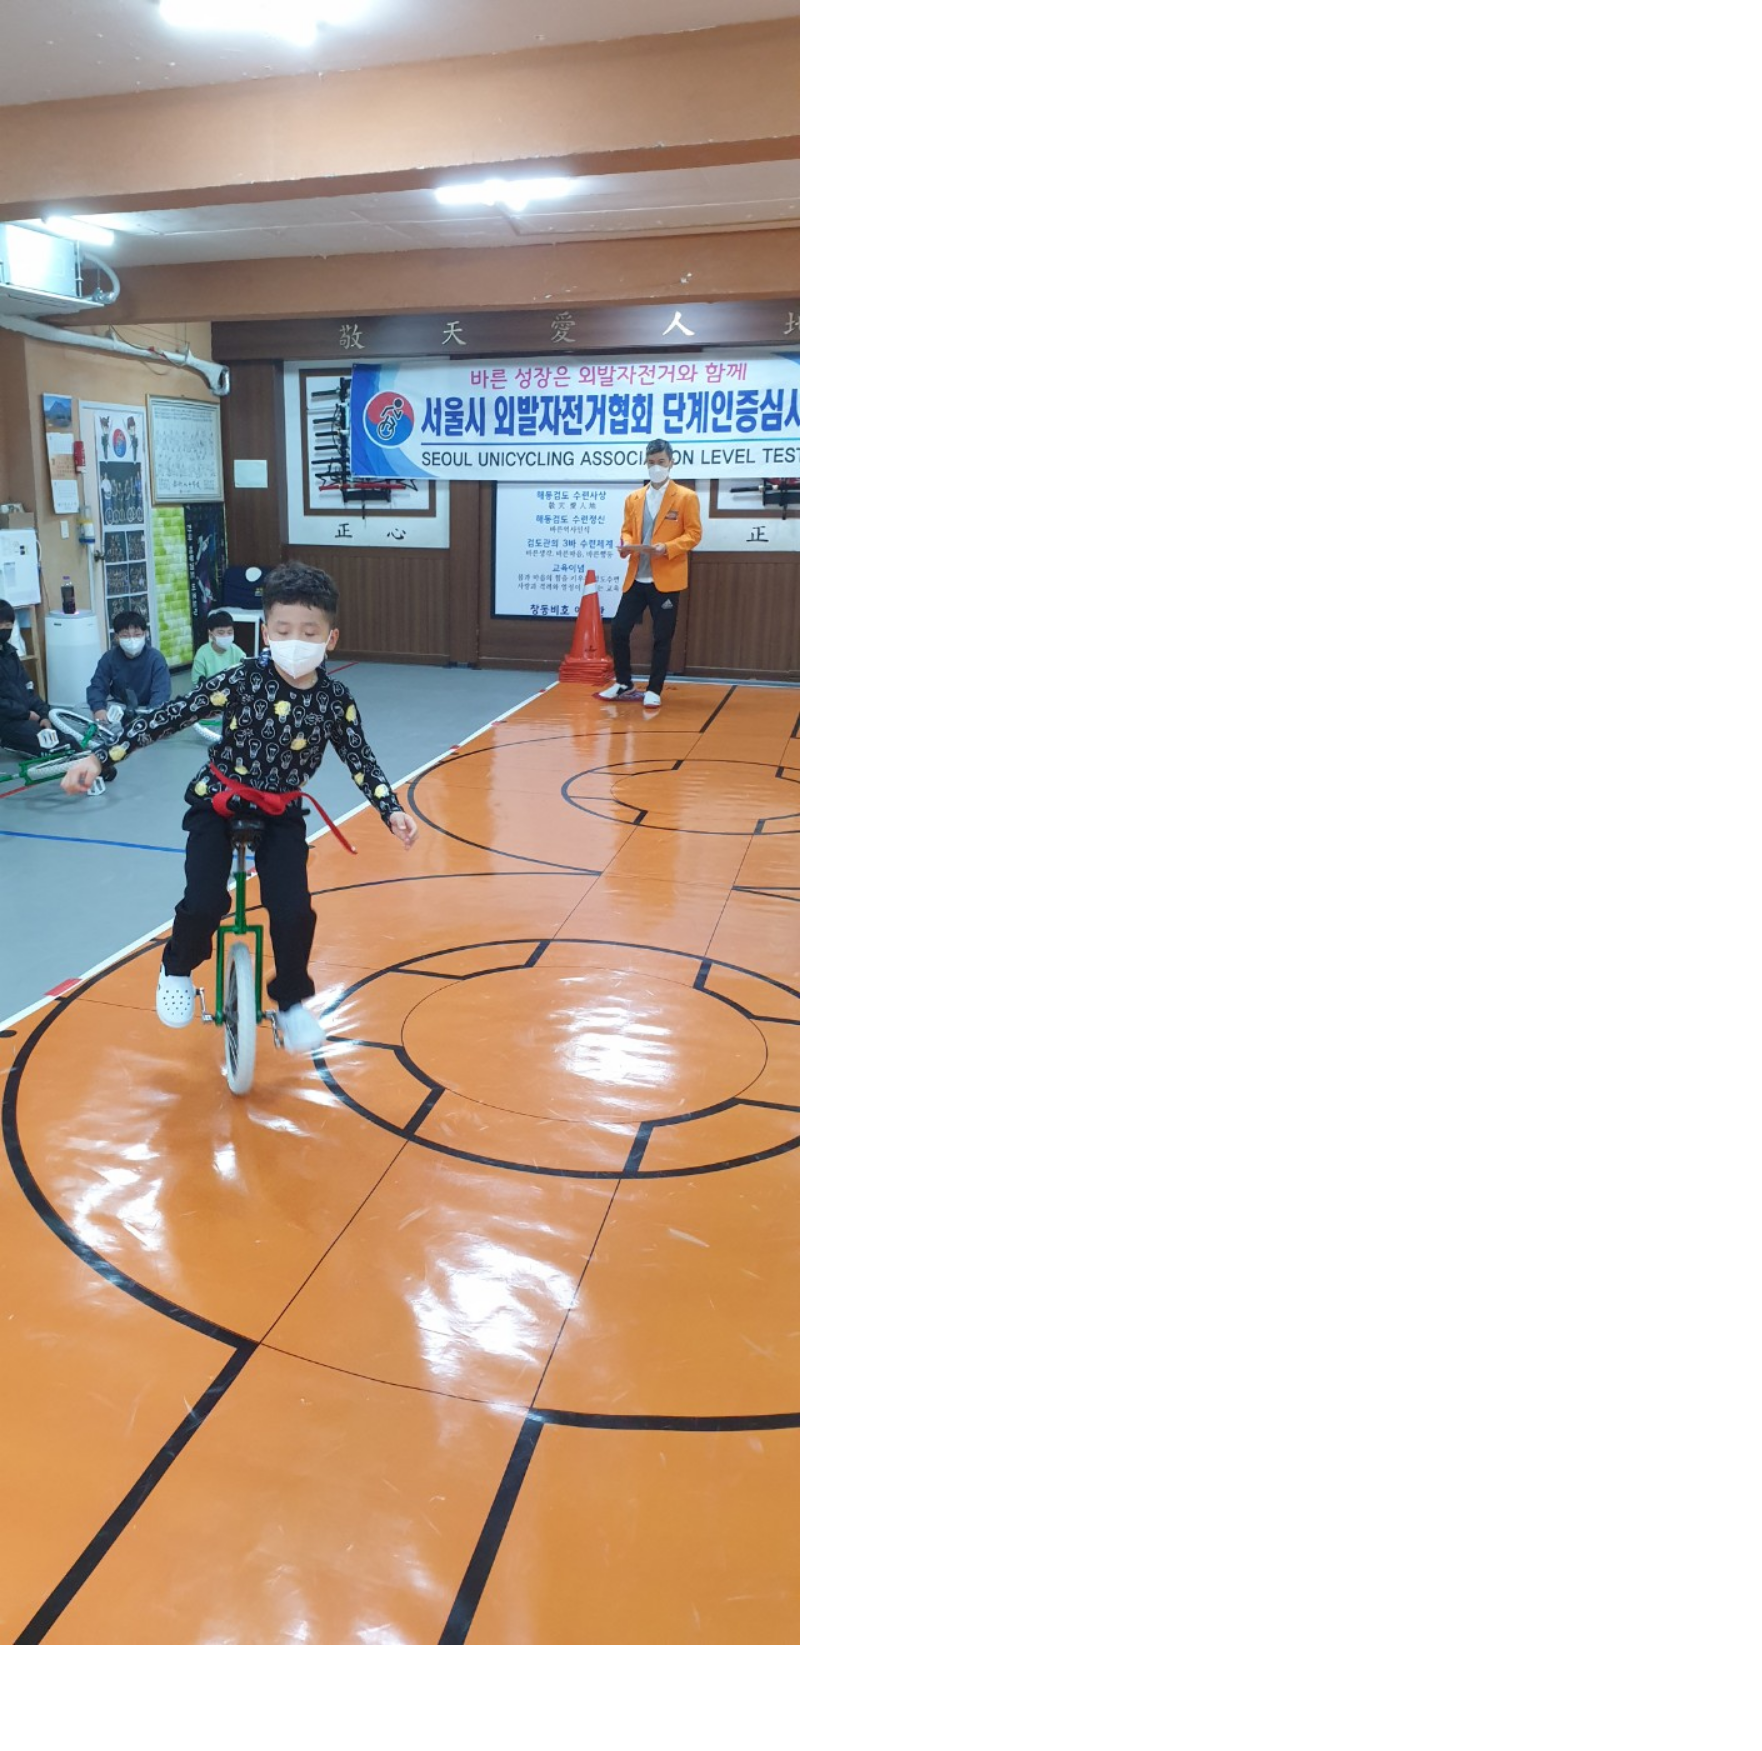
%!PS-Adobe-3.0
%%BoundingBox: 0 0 1762 1751
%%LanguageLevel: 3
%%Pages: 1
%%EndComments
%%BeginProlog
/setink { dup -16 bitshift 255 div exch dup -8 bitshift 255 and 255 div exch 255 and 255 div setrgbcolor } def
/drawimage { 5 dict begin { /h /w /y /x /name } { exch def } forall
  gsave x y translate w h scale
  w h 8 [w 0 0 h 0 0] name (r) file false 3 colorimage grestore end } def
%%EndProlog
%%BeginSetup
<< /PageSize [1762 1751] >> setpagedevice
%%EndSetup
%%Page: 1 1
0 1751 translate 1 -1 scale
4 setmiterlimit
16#FFFFFF setink
0 0 1762 1751 rectfill
(img1.raw) 0 0 800 1645 drawimage
showpage
%%EOF
